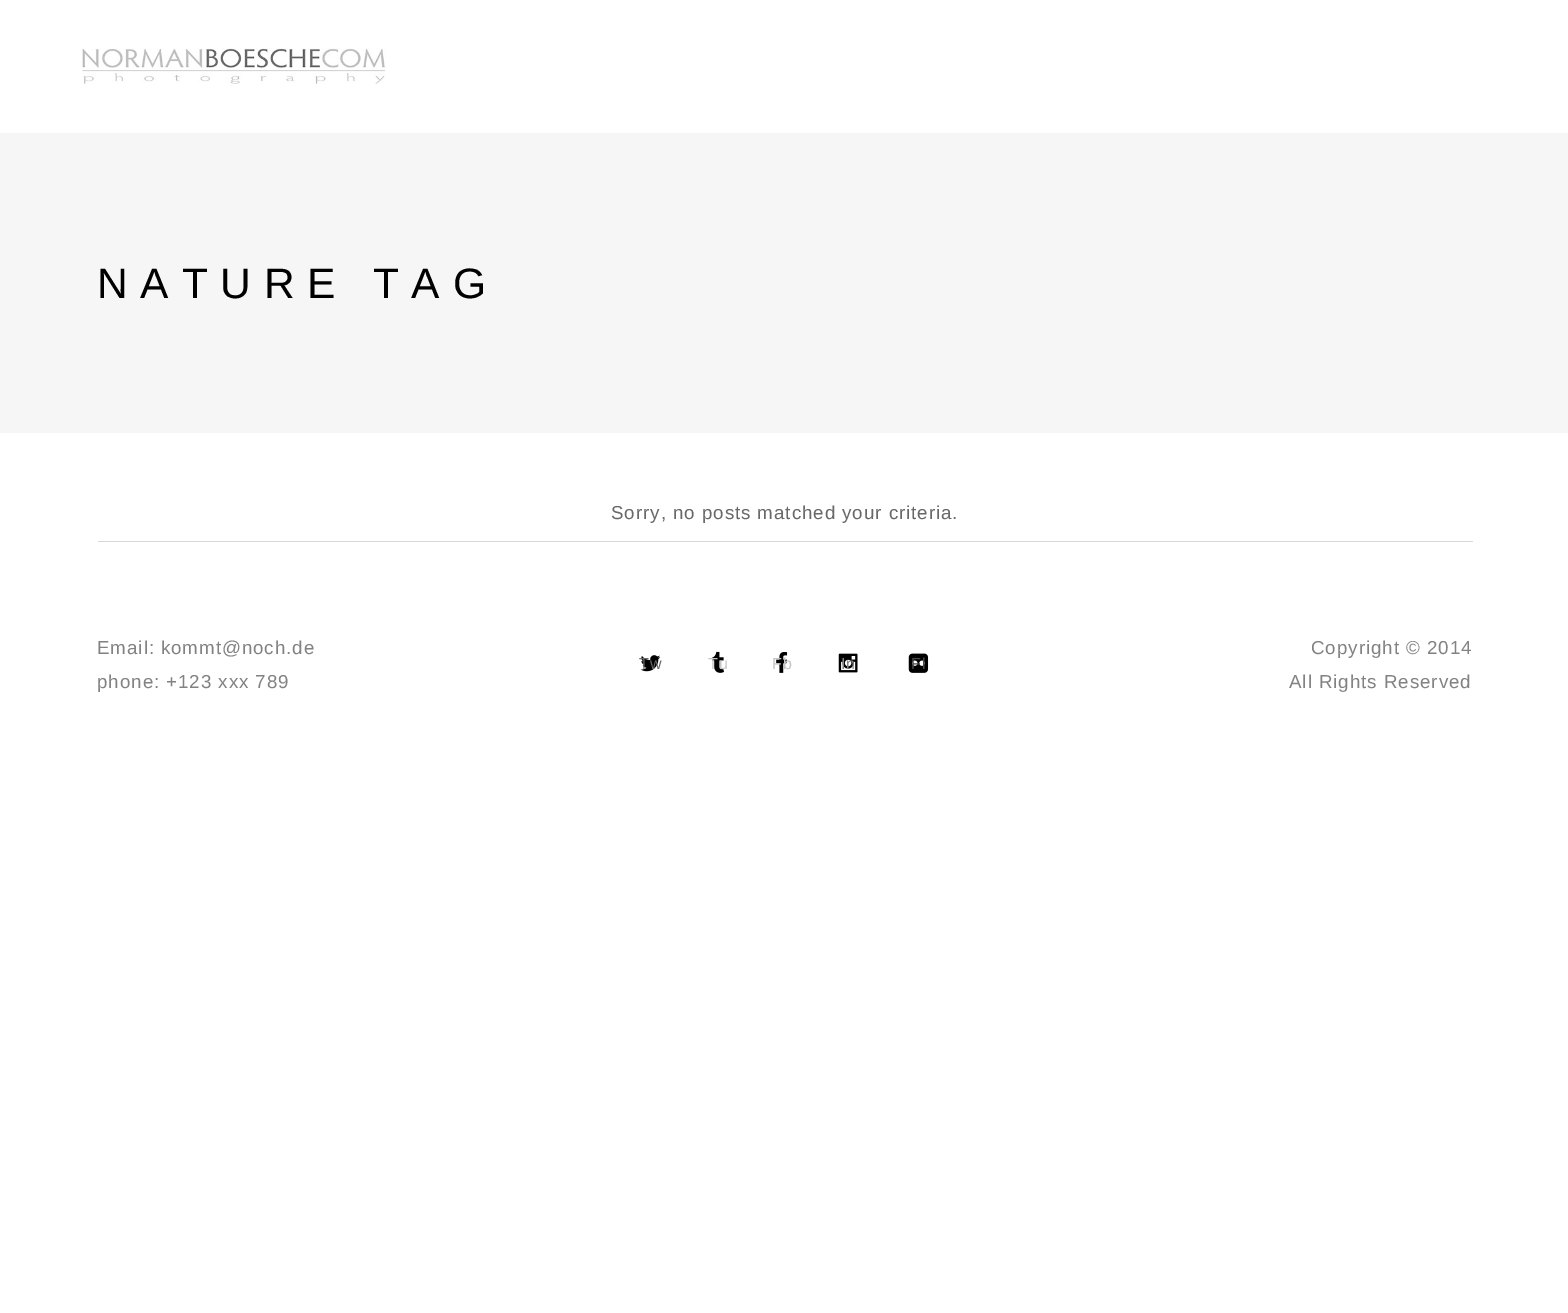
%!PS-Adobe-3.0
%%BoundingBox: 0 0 1568 1313
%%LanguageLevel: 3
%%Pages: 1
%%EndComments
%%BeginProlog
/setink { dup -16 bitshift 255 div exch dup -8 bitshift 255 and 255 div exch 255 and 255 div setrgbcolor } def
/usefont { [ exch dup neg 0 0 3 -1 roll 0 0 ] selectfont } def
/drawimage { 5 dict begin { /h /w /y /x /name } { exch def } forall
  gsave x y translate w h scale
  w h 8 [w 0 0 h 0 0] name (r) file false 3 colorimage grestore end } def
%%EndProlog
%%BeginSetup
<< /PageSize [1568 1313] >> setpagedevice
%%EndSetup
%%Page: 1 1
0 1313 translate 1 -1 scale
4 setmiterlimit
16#FFFFFF setink
0 0 1568 1313 rectfill
(img1.raw) 82 48 304 36 drawimage
16#F6F6F6 setink
0 133 1568 300 rectfill
/LiberationSans-Regular 42.5 usefont
16#000000 setink
97 298 moveto 12.75 0 (NATURE TAG) ashow
/LiberationSans-Regular 18.75 usefont
16#686868 setink
611 519 moveto 0.95 0 (Sorry, no posts matched your criteria.) ashow
16#D7D7D7 setink
98 541 1375 1 rectfill
16#828282 setink
97 654 moveto 0.95 0 (Email: k) ashow
171 654 moveto 0.95 0 (ommt@noch.de) ashow
97 688 moveto 0.95 0 (phone: +123 xxx 789) ashow
(img2.raw) 640 655 21 17 drawimage
/LiberationSans-Regular 16 usefont
16#686868 setink
639 669 moveto 0.95 0 (Tw) ashow
(img3.raw) 712 651 12 22 drawimage
16#C5C5C5 setink
708 669 moveto 0.95 0 (Tu) ashow
(img4.raw) 776 652 12 21 drawimage
772 669 moveto 0.95 0 (Fb) ashow
(img5.raw) 838 653 20 20 drawimage
16#828282 setink
841 669 moveto 0.95 0 (In) ashow
(img6.raw) 908 653 21 20 drawimage
16#494949 setink
911 669 moveto 0.95 0 (Fl) ashow
/LiberationSans-Regular 18.75 usefont
16#828282 setink
1311 654 moveto 0.95 0 (Copyright © 2014) ashow
1289 688 moveto 0.95 0 (All Rights Reserved) ashow
showpage
%%EOF
